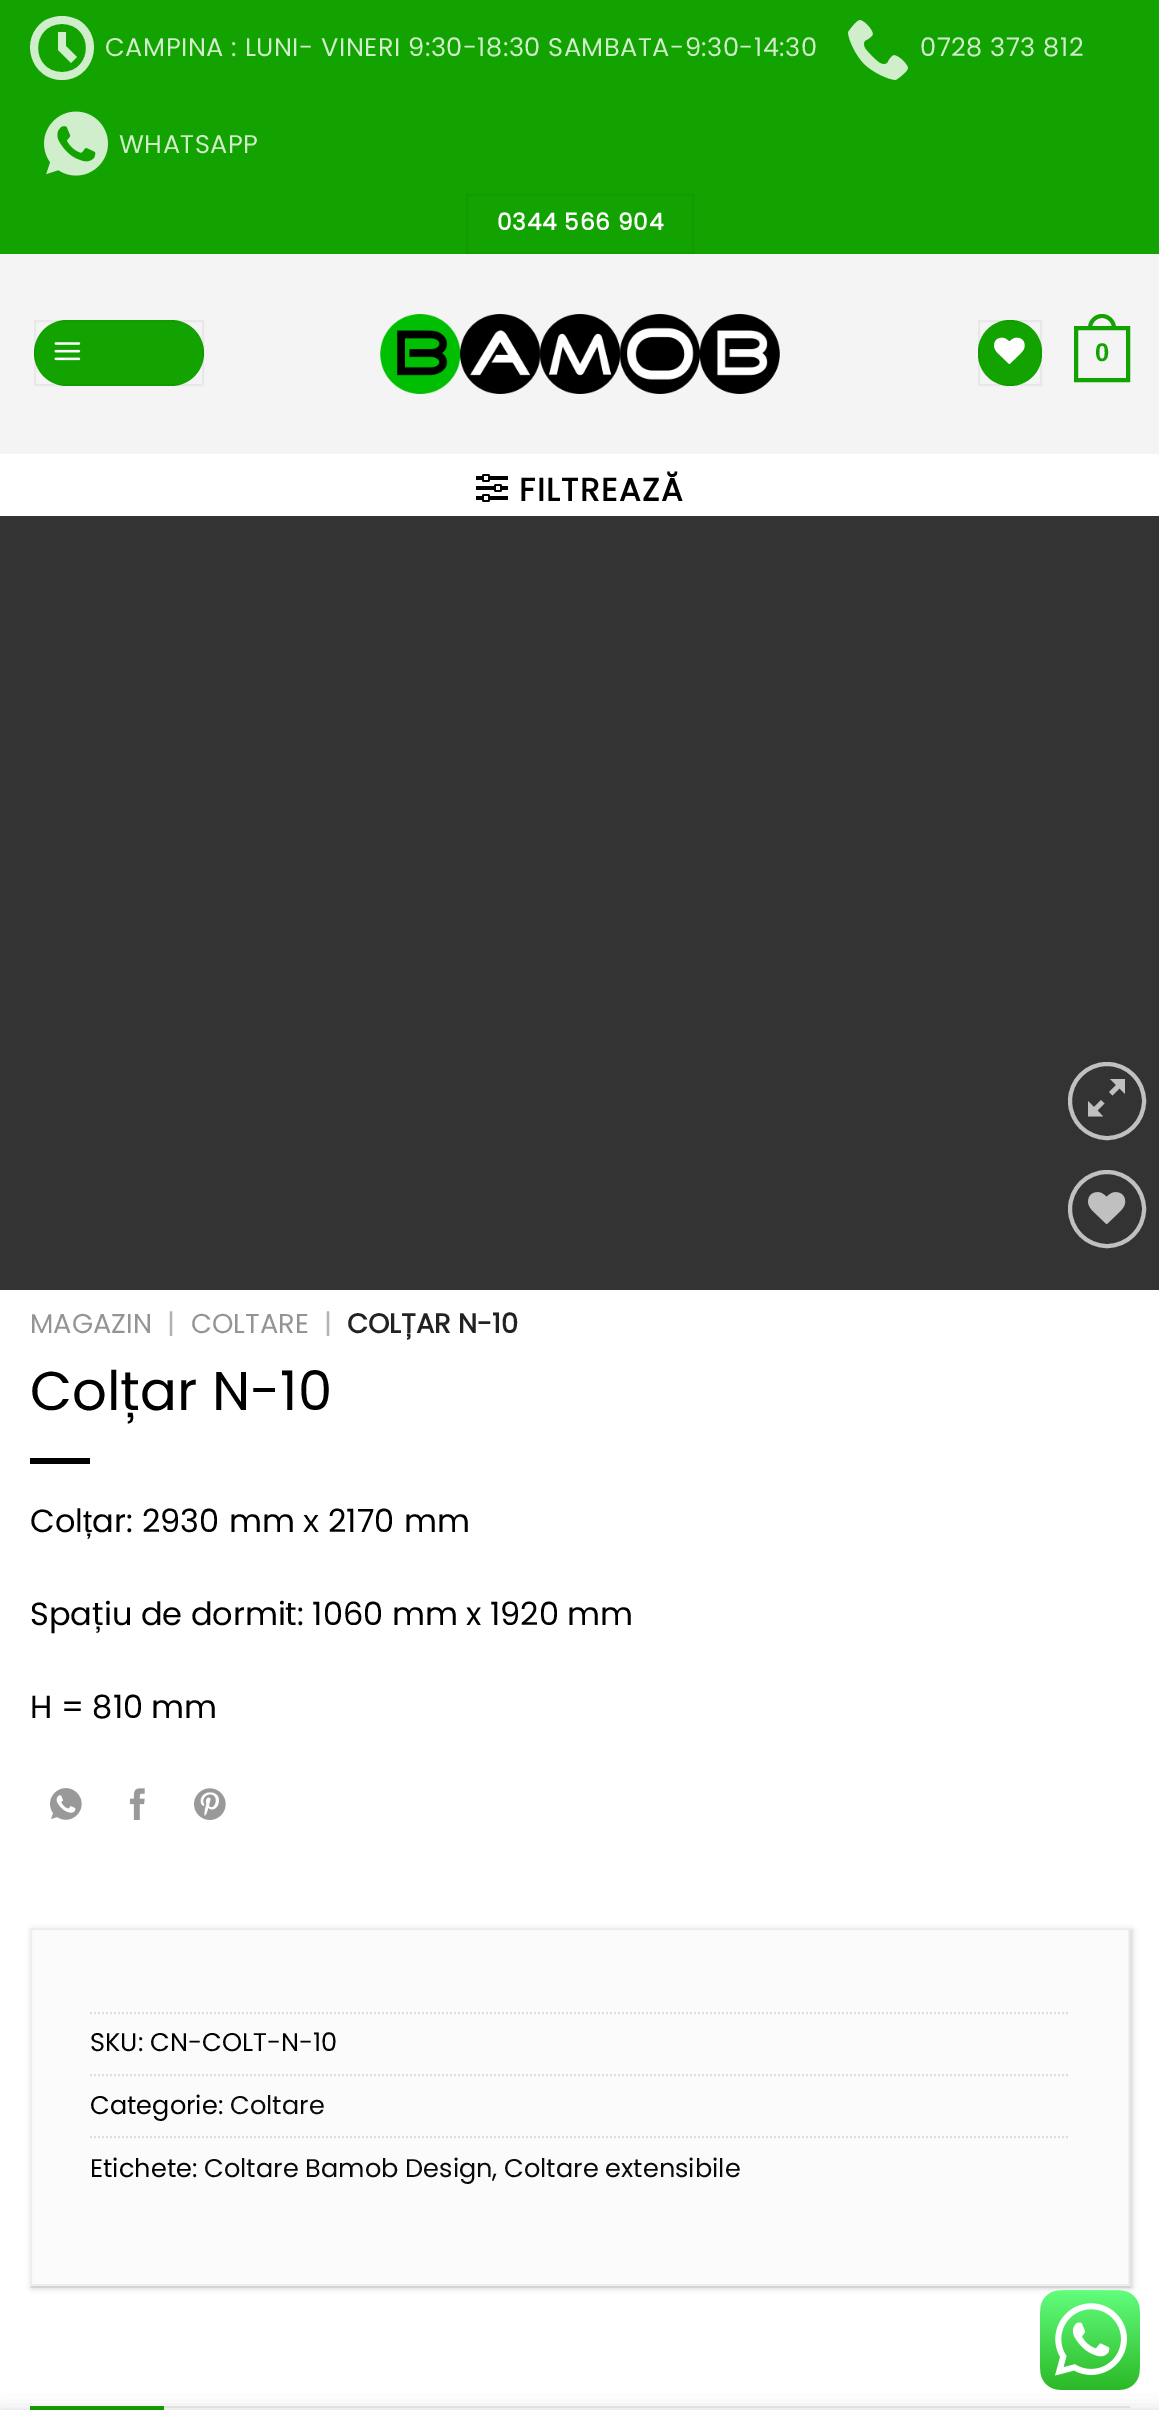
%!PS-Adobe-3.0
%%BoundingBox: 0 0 1159 2410
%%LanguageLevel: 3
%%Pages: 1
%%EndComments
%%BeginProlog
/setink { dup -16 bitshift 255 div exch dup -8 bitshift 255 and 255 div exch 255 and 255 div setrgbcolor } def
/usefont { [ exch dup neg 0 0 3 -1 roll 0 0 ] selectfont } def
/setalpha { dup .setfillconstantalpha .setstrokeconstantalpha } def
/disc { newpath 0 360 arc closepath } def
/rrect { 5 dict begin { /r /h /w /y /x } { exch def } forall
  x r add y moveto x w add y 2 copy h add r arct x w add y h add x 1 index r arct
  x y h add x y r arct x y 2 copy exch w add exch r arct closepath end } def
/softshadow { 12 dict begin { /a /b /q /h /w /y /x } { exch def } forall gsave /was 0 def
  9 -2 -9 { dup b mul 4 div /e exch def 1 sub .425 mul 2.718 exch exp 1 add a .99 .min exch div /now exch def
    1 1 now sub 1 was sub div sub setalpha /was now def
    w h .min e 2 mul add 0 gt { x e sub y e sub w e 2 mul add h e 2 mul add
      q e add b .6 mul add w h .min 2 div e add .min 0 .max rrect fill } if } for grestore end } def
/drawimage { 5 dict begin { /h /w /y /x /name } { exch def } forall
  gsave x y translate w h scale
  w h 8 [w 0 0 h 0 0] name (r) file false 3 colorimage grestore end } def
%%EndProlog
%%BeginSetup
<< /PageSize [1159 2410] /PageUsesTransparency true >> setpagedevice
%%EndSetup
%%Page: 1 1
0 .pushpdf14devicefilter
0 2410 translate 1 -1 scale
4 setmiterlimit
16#FFFFFF setink
0 0 1159 2410 rectfill
16#12A301 setink
0 0 1159 254 rectfill
16#D0EDCC setink
71 63 moveto 58 50 lineto 58 32 lineto 66 32 lineto 66 46 lineto 77 57 lineto closepath 62 16 moveto 56 16 49 18 44 21 curveto 18 39 31 80 62 80 curveto 93 80 106 39 80 21 curveto 75 18 68 16 62 16 curveto closepath 62 72 moveto 30 72 30 24 62 24 curveto 94 24 94 72 62 72 curveto closepath fill
/Poppins-Regular 25.6 usefont
105 56 moveto 0.5 0 (CAMPINA : LUNI- VINERI 9:30-18:30 SAMBATA-9:30-14:30) ashow
(img1.raw) 848 20 60 60 drawimage
920 56 moveto 0.5 0 (0728 373 812) ashow
(img2.raw) 44 111 64 65 drawimage
119 153 moveto 0.5 0 (WHATSAPP) ashow
16#119B01 setink
2 setlinewidth
467 195 226 58 rectstroke
/Poppins-Bold 23.25 usefont
16#FFFFFF setink
497 230 moveto 0.75 0 (0344 566 904) ashow
16#F4F4F4 setink
0 254 1159 200 rectfill
16#13A300 setink
34 320 170 66 33 rrect fill
0.05 setalpha
16#000000 setink
35 321 168 64 rectstroke
1 setalpha
(img3.raw) 54 342 27 19 drawimage
(img4.raw) 380 314 400 80 drawimage
16#13A300 setink
978 320 64 66 32 rrect fill
0.05 setalpha
16#000000 setink
979 321 62 64 rectstroke
1 setalpha
(img5.raw) 994 337 31 27 drawimage
16#13A300 setink
4 setlinewidth
1076 328 52 52 rectstroke
1102 314 moveto 1109.5 314 1116 320.5 1116 328 curveto 1116 330 lineto 1088 330 lineto 1088 328 lineto 1088 320.5 1094.5 314 1102 314 curveto closepath 1102 318 moveto 1107.5 318 1112 322.5 1112 328 curveto 1112 330 lineto 1092 330 lineto 1092 328 lineto 1092 322.5 1096.5 318 1102 318 curveto closepath eofill
/LiberationSans-Bold 25.6 usefont
1095 361 moveto (0) show
(img6.raw) 476 474 32 28 drawimage
/Poppins-Bold 32 usefont
16#000000 setink
519 501 moveto 1.5 0 (FILTREAZĂ) ashow
16#333333 setink
0 516 1159 774 rectfill
16#C0C0C0 setink
1107 1101 37 disc stroke
1125 1079 moveto 1125 1094 lineto 1119.5 1088.5 lineto 1112.5 1095.5 lineto 1109 1092 lineto 1116 1085 lineto 1110 1079 lineto closepath 1104.5 1103.5 moveto 1097.5 1110.5 lineto 1103 1116.5 lineto 1088 1116.5 lineto 1088 1101 lineto 1094 1107 lineto 1101 1100 lineto closepath fill
1107 1209 37 disc stroke
(img7.raw) 1088 1192 38 32 drawimage
/Poppins-Regular 27.25 usefont
16#949494 setink
30 1333 moveto (MAGAZIN) show
16#B2B2B2 setink
167 1333 moveto (|) show
16#949494 setink
191 1333 moveto (COLTARE) show
16#B2B2B2 setink
324 1333 moveto (|) show
/Poppins-Bold 27.25 usefont
16#222222 setink
347 1333 moveto (COLȚAR N-10) show
/Poppins-Regular 54.5 usefont
16#000000 setink
30 1410 moveto (Colțar N-10) show
30 1458 60 6 rectfill
/Poppins-Regular 32 usefont
30 1532 moveto (Col) show
/LiberationSans-Regular 32 usefont
83 1532 moveto (ț) show
/Poppins-Regular 32 usefont
92 1532 moveto 1 0 32 (ar: 2930 mm) widthshow
/LiberationSans-Regular 32 usefont
303 1532 moveto (х) show
/Poppins-Regular 32 usefont
328 1532 moveto 1 0 32 (2170 mm) widthshow
30 1625 moveto (Spațiu de dormit: 1060 mm x 1920 mm) show
30 1718 moveto (H = 810 mm) show
(img8.raw) 50 1788 32 32 drawimage
(img9.raw) 129 1788 16 32 drawimage
(img10.raw) 194 1788 32 32 drawimage
16#EDEDED setink
30 2286 1100 2 rectfill
16#000000 setink
32 1930 1100 358 0 3 0.2 softshadow
16#FBFBFB setink
31 1929 moveto 1129 1929 lineto 1129 2285 lineto 31 2285 lineto closepath gsave fill grestore
16#EEEEEE setink
2 setlinewidth
stroke
16#DDDDDD setink
[2 2] 0 setdash
90 2013 moveto 1070 2013 lineto stroke
/Poppins-Regular 25.6 usefont
16#000000 setink
90 2051 moveto (SKU: CN-COLT-N-10) show
16#DDDDDD setink
90 2075 moveto 1070 2075 lineto stroke
16#000000 setink
90 2114 moveto (Categorie:) show
16#0A0A0A setink
230 2114 moveto (Coltare) show
16#DDDDDD setink
90 2137 moveto 1070 2137 lineto stroke
16#000000 setink
90 2177 moveto (Etichete:) show
16#0A0A0A setink
204 2177 moveto (Coltare Bamob Design) show
16#000000 setink
492 2177 moveto (,) show
16#0A0A0A setink
504 2177 moveto (Coltare extensibile) show
16#ECECEC setink
164 2406 966 2 rectfill
16#12A301 setink
30 2406 134 4 rectfill
16#000000 setink
0 2410 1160 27 0 9 0.14 softshadow
(img11.raw) 1040 2290 100 100 drawimage
.poppdf14devicefilter showpage
%%EOF
